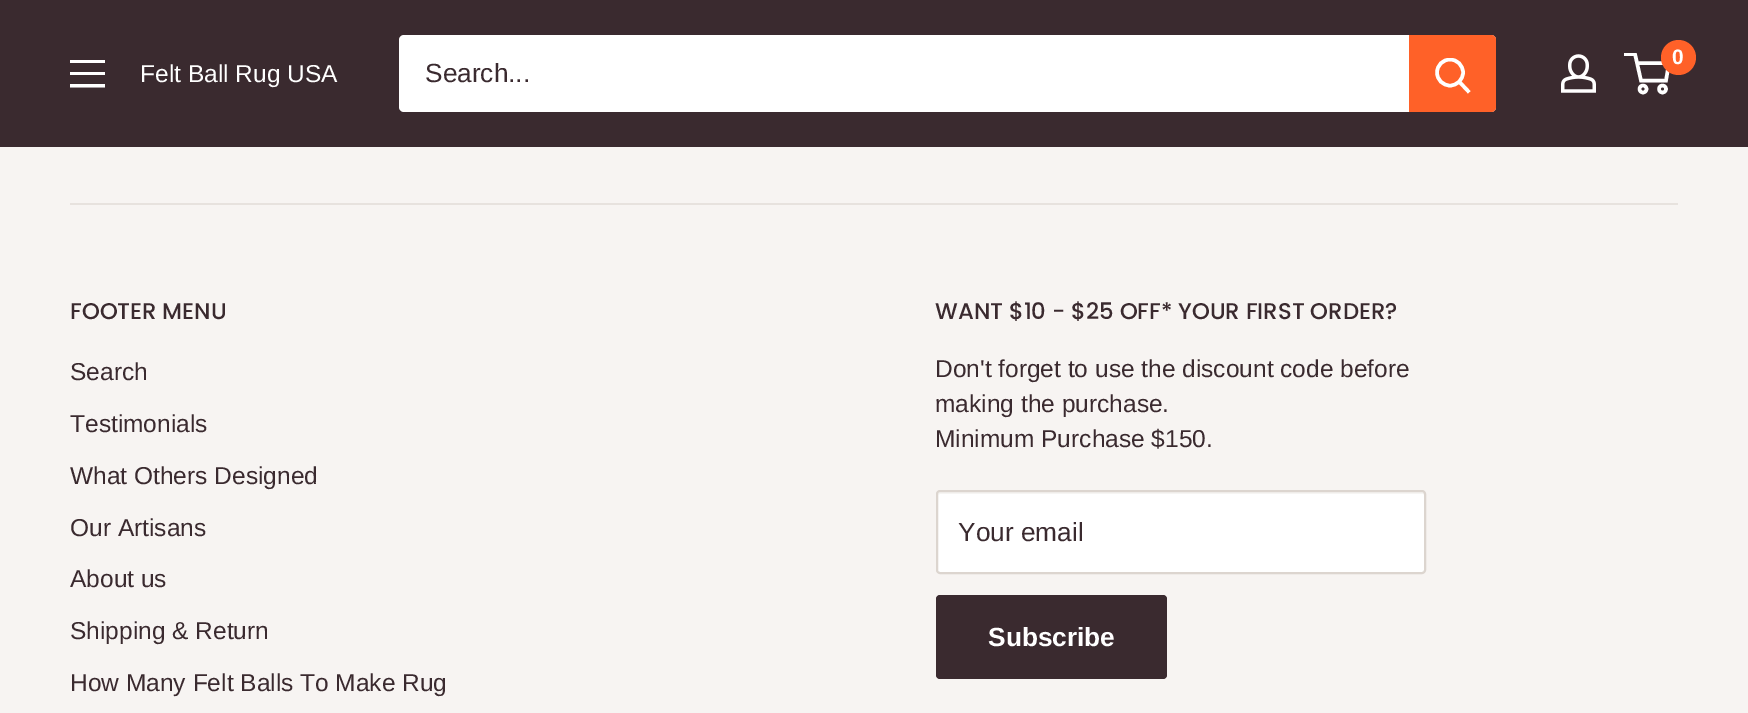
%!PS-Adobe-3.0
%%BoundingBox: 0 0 1748 713
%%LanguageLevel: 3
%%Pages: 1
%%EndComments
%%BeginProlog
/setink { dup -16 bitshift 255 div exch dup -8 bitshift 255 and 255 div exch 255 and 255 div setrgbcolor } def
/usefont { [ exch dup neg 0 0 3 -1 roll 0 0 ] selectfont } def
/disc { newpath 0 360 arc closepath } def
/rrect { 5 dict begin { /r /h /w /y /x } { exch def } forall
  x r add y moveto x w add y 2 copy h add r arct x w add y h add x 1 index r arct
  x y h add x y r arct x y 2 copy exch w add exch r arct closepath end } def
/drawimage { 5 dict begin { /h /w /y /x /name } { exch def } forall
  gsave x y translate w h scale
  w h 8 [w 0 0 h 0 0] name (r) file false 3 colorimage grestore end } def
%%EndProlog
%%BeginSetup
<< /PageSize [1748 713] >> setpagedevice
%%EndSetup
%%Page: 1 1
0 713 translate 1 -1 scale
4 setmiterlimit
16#F7F4F2 setink
0 0 1748 713 rectfill
16#3A2A2F setink
0 0 1748 147 rectfill
(img1.raw) 1561 54 35 39 drawimage
16#FFFFFF setink
3.5 setlinewidth
1643 89 3.5 disc stroke
1662.5 89 3.5 disc stroke
gsave
1624 53 47 42 rectclip
1637 63 moveto 1669 63 lineto 1666 80.5 lineto 1641 80.5 lineto 1635 54 lineto 1624 54 lineto stroke
grestore
16#FF6128 setink
1678.5 57.5 17.5 disc fill
/LiberationSans-Bold 21 usefont
16#FFFFFF setink
1672 64 moveto (0) show
gsave
70 60 35 28 rectclip
70 84 moveto 105 84 lineto 105 87.5 lineto 70 87.5 lineto closepath 70 59.5 moveto 105 59.5 lineto 105 63 lineto 70 63 lineto closepath 70 72 moveto 105 72 lineto 105 75 lineto 70 75 lineto closepath eofill
grestore
/LiberationSans-Regular 24.5 usefont
140 82 moveto (Felt Ball Rug USA) show
399 35 1097 77 5 rrect fill
/LiberationSans-Regular 26.25 usefont
16#3A2A2F setink
425 82 moveto (Search...) show
16#FF6128 setink
1409 35 moveto 1491 35 lineto 1494 35 1496 37 1496 40 curveto 1496 107 lineto 1496 110 1494 112 1491 112 curveto 1409 112 lineto closepath fill
16#FFFFFF setink
2 setlinecap
1468 91 moveto 1459.5 82 lineto stroke
gsave
1435 58 37 37 rectclip
0 setlinecap
1450 72.5 13 disc stroke
grestore
16#E7E2DE setink
70 203 1608 2 rectfill
/Poppins-Medium 22.75 usefont
16#3A2A2F setink
70 319 moveto (FOOTER MENU) show
/LiberationSans-Regular 24.5 usefont
[
    [(Search) 70 380]
    [(Testimonials) 70 432]
    [(What Others Designed) 70 484]
    [(Our Artisans) 70 536]
    [(About us) 70 587]
    [(Shipping & Return) 70 639]
    [(How Many Felt Balls To Make Rug) 70 691]
] { aload pop moveto show } forall
/Poppins-Medium 22.75 usefont
935 319 moveto (WANT $10 - $25 OFF* YOUR FIRST ORDER?) show
/LiberationSans-Regular 24.5 usefont
[
    [(Don't forget to use the discount code before) 935 377]
    [(making the purchase.) 935 412]
    [(Minimum Purchase $150.) 935 447]
] { aload pop moveto show } forall
16#FFFFFF setink
936 490 490 84 4 rrect fill
16#F6F5F3 setink
940 494 moveto 1423 494 lineto 1424 494 1424 494 1424 495 curveto 1424 572 lineto 1425 571 1425 571 1425 570 curveto 1425 494 lineto 1425 493 1424 492 1423 492 curveto 940 492 lineto 939 492 938 493 938 494 curveto 938 495 lineto 938 494 939 494 940 494 curveto closepath fill
16#DCD5CF setink
2 setlinewidth
0 setlinecap
937 491 488 82 3 rrect stroke
/LiberationSans-Regular 26.25 usefont
16#3A2A2F setink
958 541 moveto (Your email) show
936 595 231 84 4 rrect fill
/LiberationSans-Bold 26.25 usefont
16#FFFFFF setink
988 646 moveto (Subscribe) show
showpage
%%EOF
